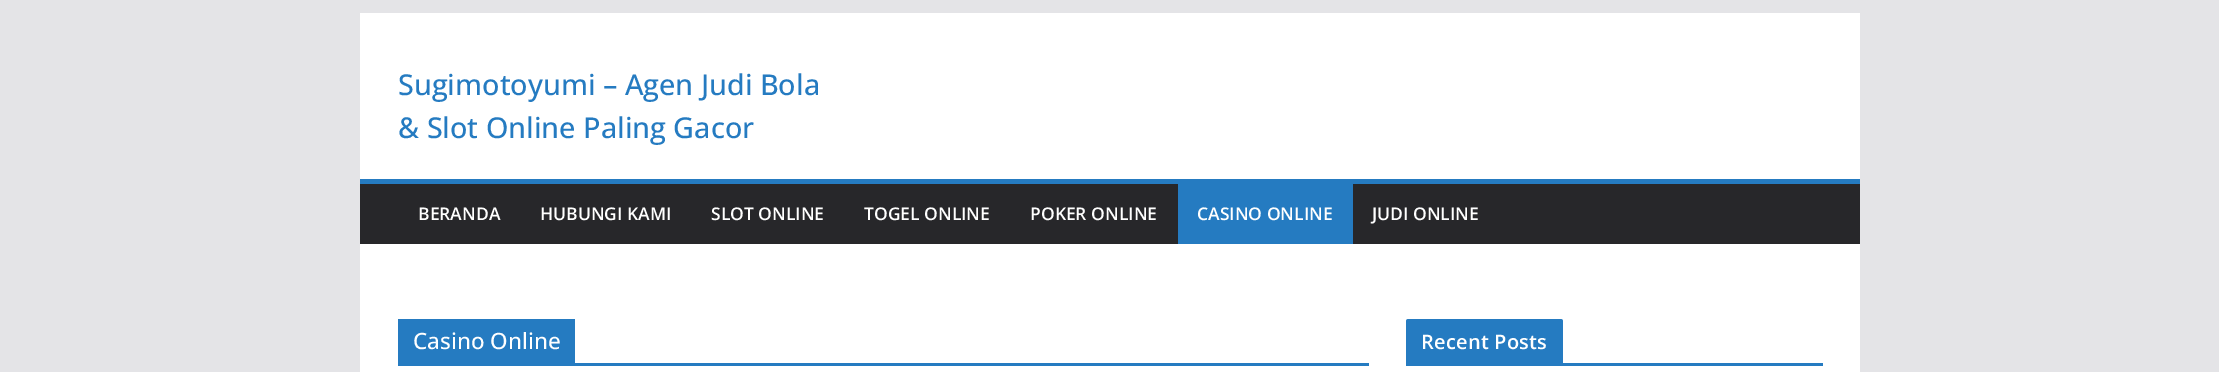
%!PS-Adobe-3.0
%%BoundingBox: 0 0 2219 372
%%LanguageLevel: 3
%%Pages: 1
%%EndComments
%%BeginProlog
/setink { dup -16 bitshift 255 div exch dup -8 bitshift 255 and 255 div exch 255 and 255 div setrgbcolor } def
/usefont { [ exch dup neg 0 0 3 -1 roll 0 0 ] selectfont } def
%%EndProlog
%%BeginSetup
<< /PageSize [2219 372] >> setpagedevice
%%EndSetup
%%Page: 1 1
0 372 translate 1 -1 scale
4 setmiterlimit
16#E4E4E7 setink
0 0 2219 372 rectfill
16#FFFFFF setink
360 13 1500 166 rectfill
/OpenSans-Medium 28.75 usefont
16#257BC1 setink
398 95 moveto (Sugimotoyumi – Agen Judi Bola) show
398 138 moveto (& Slot Online Paling Gacor) show
16#27272A setink
360 184 1500 60 rectfill
16#257BC1 setink
360 179 1500 5 rectfill
/OpenSans-SemiBold 17.5 usefont
16#FFFFFF setink
[
    [(BERANDA) 418 220]
    [(HUBUNGI KAMI) 540 220]
    [(SLOT ONLINE) 711 220]
    [(TOGEL ONLINE) 864 220]
    [(POKER ONLINE) 1030 220]
] { aload pop moveto show } forall
16#257BC1 setink
1178 184 175 60 rectfill
16#FFFFFF setink
1197 220 moveto (CASINO ONLINE) show
1372 220 moveto (JUDI ONLINE) show
[
    [360 244 1500 128 16#FFFFFF]
    [398 363 971 3 16#257BC1]
    [398 319 177 44 16#257BC1]
] { aload pop setink rectfill } forall
/OpenSans-Medium 22.5 usefont
16#FFFFFF setink
413 349 moveto (Casino Online) show
16#257BC1 setink
1406 363 417 3 rectfill
1408.5 319 moveto 1560.5 319 lineto 1562 319 1563 320 1563 321.5 curveto 1563 363 lineto 1406 363 lineto 1406 321.5 lineto 1406 320 1407 319 1408.5 319 curveto closepath fill
/OpenSans-SemiBold 20 usefont
16#FFFFFF setink
1421 349 moveto 0.25 0 (Recent Posts) ashow
showpage
%%EOF
